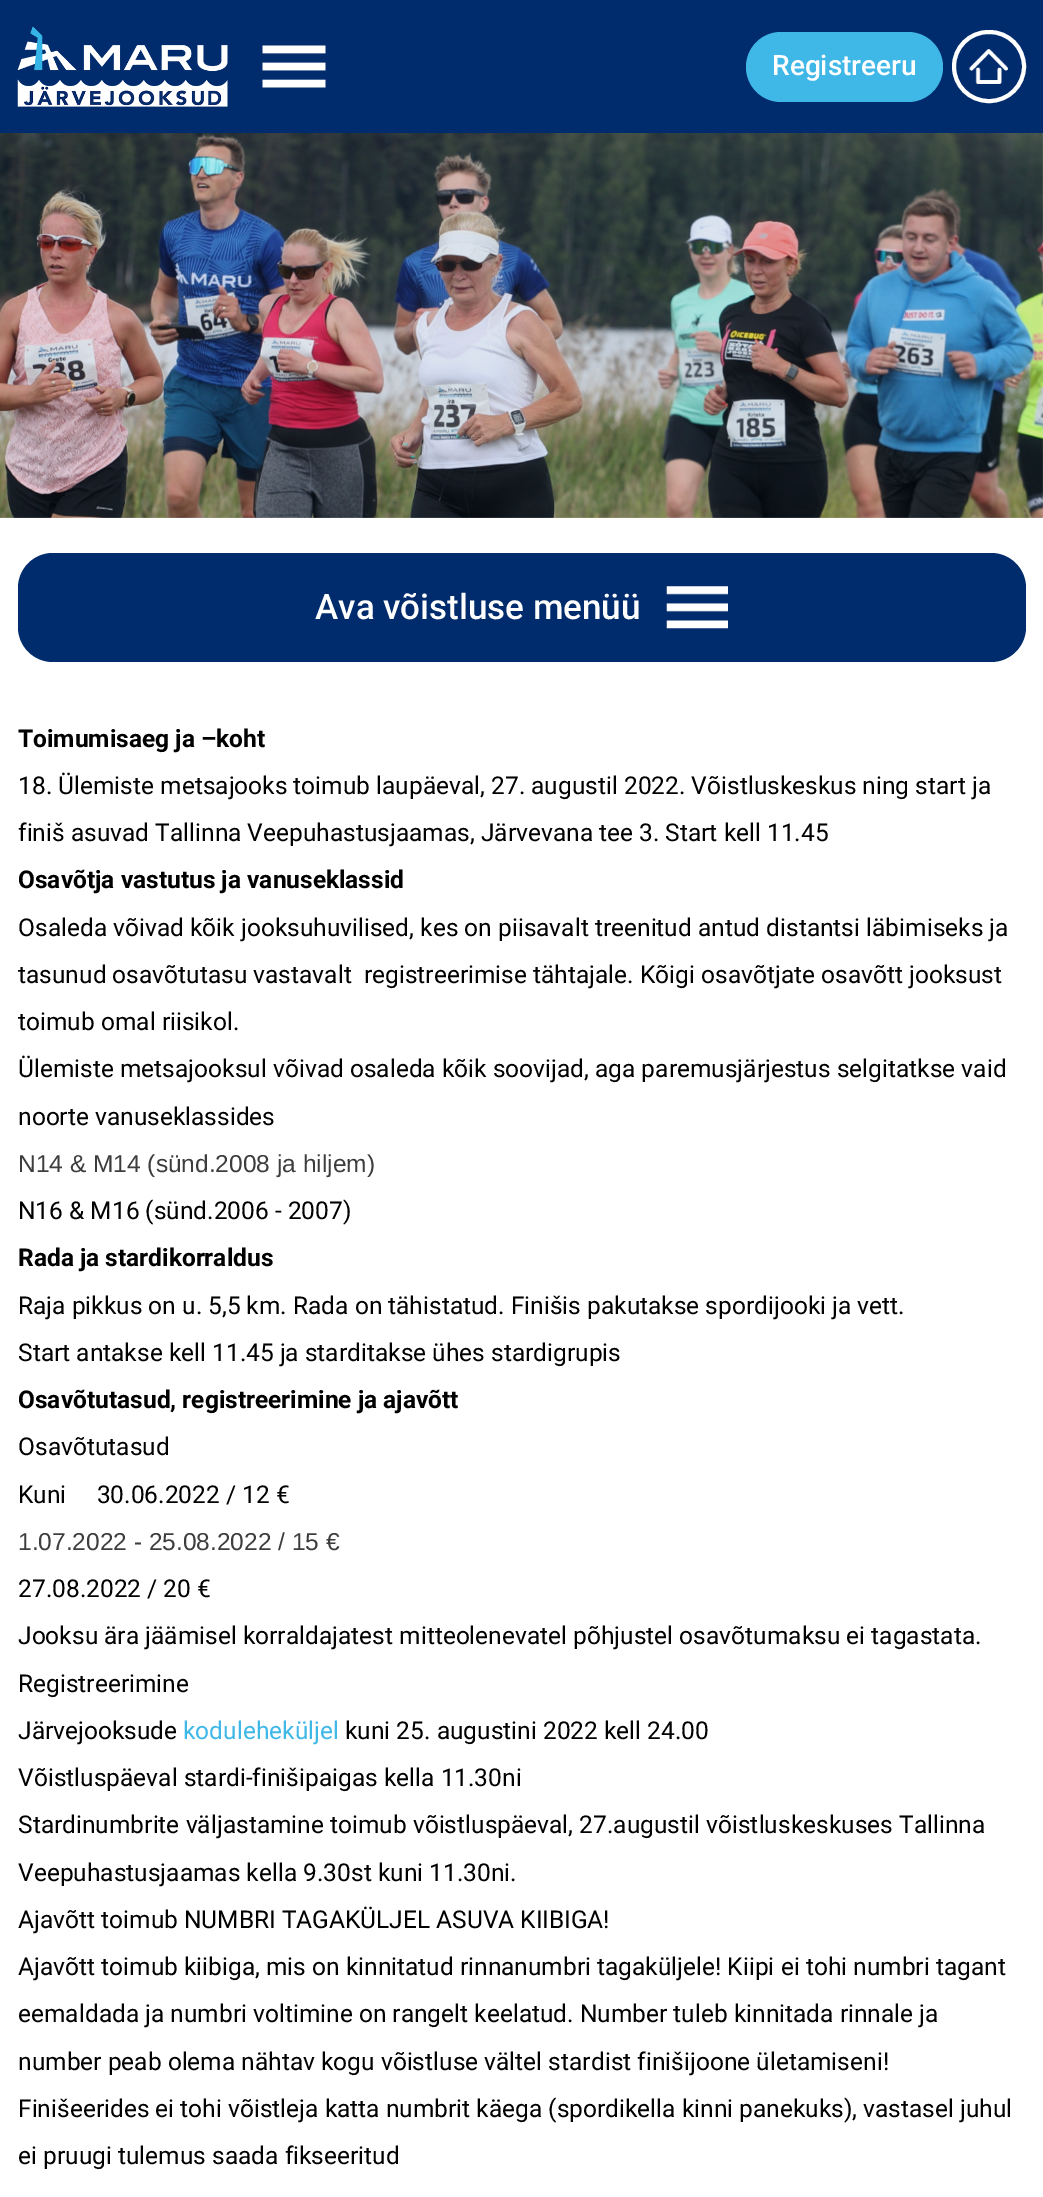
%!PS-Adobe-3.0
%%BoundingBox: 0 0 1043 2197
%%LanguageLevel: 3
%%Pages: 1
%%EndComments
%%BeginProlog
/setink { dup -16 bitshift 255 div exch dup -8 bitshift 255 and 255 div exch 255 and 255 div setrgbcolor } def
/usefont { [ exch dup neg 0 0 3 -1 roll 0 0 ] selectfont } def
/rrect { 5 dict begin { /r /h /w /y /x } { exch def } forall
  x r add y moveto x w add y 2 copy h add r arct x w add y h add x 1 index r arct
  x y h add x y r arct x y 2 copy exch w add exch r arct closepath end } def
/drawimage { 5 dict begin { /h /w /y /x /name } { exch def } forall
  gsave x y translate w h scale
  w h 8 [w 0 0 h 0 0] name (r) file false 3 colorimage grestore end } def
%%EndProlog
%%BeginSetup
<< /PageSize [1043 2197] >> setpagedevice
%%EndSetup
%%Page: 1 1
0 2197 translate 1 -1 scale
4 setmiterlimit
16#002B6C setink
0 0 1043 2197 rectfill
(img1.raw) 17 26 211 81 drawimage
(img2.raw) 262 45 64 43 drawimage
16#3FB7E7 setink
746 32 197 70 35 rrect fill
/Roboto-Medium 28 usefont
16#FFFFFF setink
772 75 moveto (Registreeru) show
(img3.raw) 969 49 39 35 drawimage
4 setlinewidth
954 32 70 69 34.5 rrect stroke
(img4.raw) 0 133 1043 385 drawimage
0 518 1043 1679 rectfill
16#002B6C setink
18 553 1008 109 35 rrect fill
/Roboto-Medium 35 usefont
16#FFFFFF setink
315 619 moveto (Ava võistluse menüü) show
(img5.raw) 666 586 62 43 drawimage
/Roboto-Bold 24.5 usefont
16#000000 setink
18 747 moveto (Toimumisaeg ja –koht) show
/Roboto-Regular 24.5 usefont
18 794 moveto (18. Ülemiste metsajooks toimub laupäeval, 27. augustil 2022. Võistluskeskus ning start ja) show
18 841 moveto (finiš asuvad Tallinna Veepuhastusjaamas, Järvevana tee 3. Start kell 11.45) show
/Roboto-Bold 24.5 usefont
18 888 moveto (Osavõtja vastutus ja vanuseklassid) show
/Roboto-Regular 24.5 usefont
[
    [(Osaleda võivad kõik jooksuhuvilised, kes on piisavalt treenitud antud distantsi läbimiseks ja) 18 936]
    [(tasunud osavõtutasu vastavalt  registreerimise tähtajale. Kõigi osavõtjate osavõtt jooksust) 18 983]
    [(toimub omal riisikol.) 18 1030]
    [(Ülemiste metsajooksul võivad osaleda kõik soovijad, aga paremusjärjestus selgitatkse vaid) 18 1077]
    [(noorte vanuseklassides) 18 1125]
] { aload pop moveto show } forall
/LiberationSans-Regular 24.5 usefont
16#3D3D3D setink
18 1172 moveto (N14 & M14 \(sünd.2008 ja hiljem\)) show
/Roboto-Regular 24.5 usefont
16#000000 setink
18 1219 moveto (N16 & M16 \(sünd.2006 - 2007\)) show
/Roboto-Bold 24.5 usefont
18 1266 moveto (Rada ja stardikorraldus) show
/Roboto-Regular 24.5 usefont
18 1314 moveto (Raja pikkus on u. 5,5 km. Rada on tähistatud. Finišis pakutakse spordijooki ja vett.) show
18 1361 moveto (Start antakse kell 11.45 ja starditakse ühes stardigrupis) show
/Roboto-Bold 24.5 usefont
18 1408 moveto (Osavõtutasud, registreerimine ja ajavõtt) show
/Roboto-Regular 24.5 usefont
18 1455 moveto (Osavõtutasud) show
18 1503 moveto (Kuni     30.06.2022 / 12 €) show
/LiberationSans-Regular 24.5 usefont
16#3D3D3D setink
18 1550 moveto (1.07.2022 - 25.08.2022 / 15 €) show
/Roboto-Regular 24.5 usefont
16#000000 setink
[
    [(27.08.2022 / 20 €) 18 1597]
    [(Jooksu ära jäämisel korraldajatest mitteolenevatel põhjustel osavõtumaksu ei tagastata.) 18 1644]
    [(Registreerimine) 18 1692]
    [(Järvejooksude) 18 1739]
] { aload pop moveto show } forall
16#3FB7E7 setink
183 1739 moveto (koduleheküljel) show
16#000000 setink
[
    [(kuni 25. augustini 2022 kell 24.00) 345 1739]
    [(Võistluspäeval stardi-finišipaigas kella 11.30ni) 18 1786]
    [(Stardinumbrite väljastamine toimub võistluspäeval, 27.augustil võistluskeskuses Tallinna) 18 1833]
    [(Veepuhastusjaamas kella 9.30st kuni 11.30ni.) 18 1881]
    [(Ajavõtt toimub NUMBRI TAGAKÜLJEL ASUVA KIIBIGA!) 18 1928]
    [(Ajavõtt toimub kiibiga, mis on kinnitatud rinnanumbri tagaküljele! Kiipi ei tohi numbri tagant) 18 1975]
    [(eemaldada ja numbri voltimine on rangelt keelatud. Number tuleb kinnitada rinnale ja) 18 2022]
    [(number peab olema nähtav kogu võistluse vältel stardist finišijoone ületamiseni!) 18 2070]
    [(Finišeerides ei tohi võistleja katta numbrit käega \(spordikella kinni panekuks\), vastasel juhul) 18 2117]
    [(ei pruugi tulemus saada fikseeritud) 18 2164]
] { aload pop moveto show } forall
showpage
%%EOF
